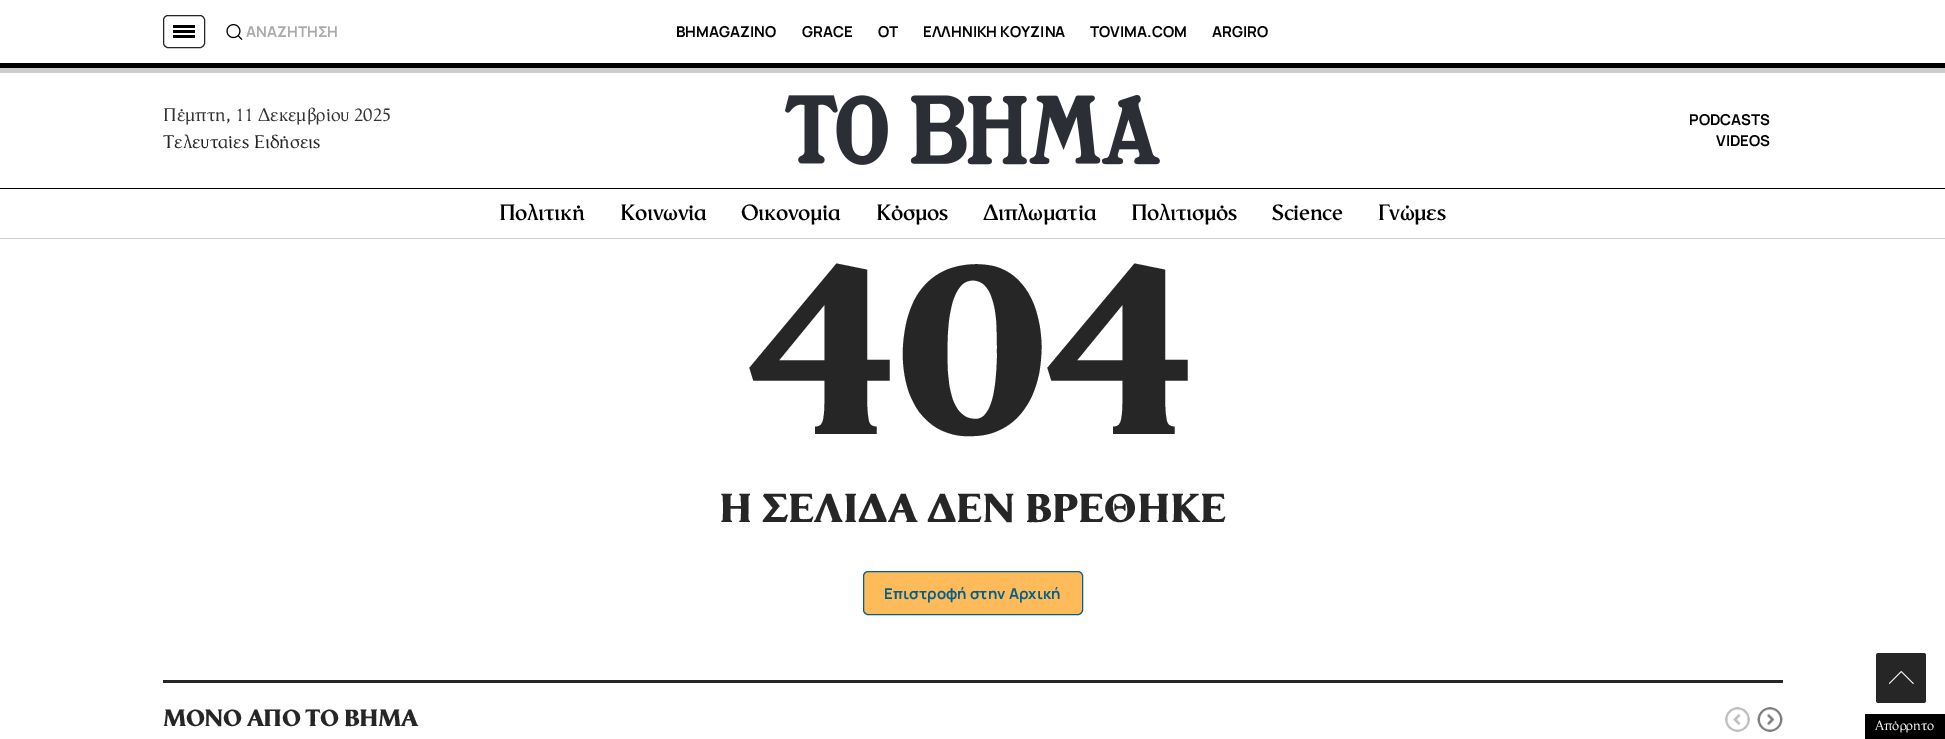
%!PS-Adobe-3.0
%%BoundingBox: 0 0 1945 739
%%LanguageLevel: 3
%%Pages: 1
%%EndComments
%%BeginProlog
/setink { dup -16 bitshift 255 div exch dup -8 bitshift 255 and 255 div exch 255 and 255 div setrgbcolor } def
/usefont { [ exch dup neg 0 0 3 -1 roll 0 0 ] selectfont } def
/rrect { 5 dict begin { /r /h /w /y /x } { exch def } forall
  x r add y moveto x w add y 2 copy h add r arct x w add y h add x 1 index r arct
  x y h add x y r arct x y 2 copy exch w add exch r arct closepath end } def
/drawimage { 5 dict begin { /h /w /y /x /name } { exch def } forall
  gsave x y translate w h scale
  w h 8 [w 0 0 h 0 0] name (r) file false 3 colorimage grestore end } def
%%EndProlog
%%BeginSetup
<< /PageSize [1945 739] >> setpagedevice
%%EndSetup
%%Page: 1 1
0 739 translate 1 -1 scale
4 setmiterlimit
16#FFFFFF setink
0 0 1945 739 rectfill
16#000000 setink
0 63 1945 5 rectfill
16#262626 setink
163.5 15.5 41 32 4.5 rrect stroke
[
    [173 25 22 3 16#000000]
    [173 30 22 3 16#000000]
    [173 35 22 3 16#000000]
] { aload pop setink rectfill } forall
(img1.raw) 226 24 17 16 drawimage
/Manrope-Bold 15 usefont
16#AAAAAA setink
246 37 moveto (ΑΝΑΖΗΤΗΣΗ) show
16#000000 setink
[
    [(BHMAGAZINO) 676 37]
    [(GRACE) 802 37]
    [(OT) 878 37]
    [(ΕΛΛΗΝΙΚΗ ΚΟΥΖΙΝΑ) 923 37]
    [(TOVIMA.COM) 1090 37]
    [(ARGIRO) 1212 37]
] { aload pop moveto show } forall
16#CCCCCC setink
0 68 1945 5 rectfill
16#000000 setink
0 188 1945 1 rectfill
/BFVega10-Regular 18.75 usefont
16#333333 setink
163 121 moveto (Πέμπτη, 11 Δεκεμβρίου 2025) show
16#262626 setink
163 148 moveto (Τελευταίες Ειδήσεις) show
(img2.raw) 785 95 375 70 drawimage
/Manrope-Bold 15 usefont
16#000000 setink
1689 125 moveto (PODCASTS) show
1716 146 moveto (VIDEOS) show
/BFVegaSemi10-Bold 22.5 usefont
499 220 moveto -0.4 0 (Πολιτική) ashow
620 220 moveto -0.4 0 (Κοινωνία) ashow
741 220 moveto -0.4 0 (Οικονομία) ashow
876 220 moveto -0.4 0 (Κόσμος) ashow
983 220 moveto -0.4 0 (Διπλωματία) ashow
1131 220 moveto -0.4 0 (Πολιτισμός) ashow
1272 220 moveto -0.4 0 (Science) ashow
1378 220 moveto -0.4 0 (Γνώμες) ashow
16#CDCDCD setink
0 238 1945 1 rectfill
/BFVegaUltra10-Regular 250 usefont
16#262626 setink
749 434 moveto (404) show
/BFVegaUltra10-Regular 40.75 usefont
719 522 moveto (Η ΣΕΛΙΔΑ ΔΕΝ ΒΡΕΘΗΚΕ) show
16#FFBA59 setink
863.5 571.5 219 43 4.5 rrect gsave fill grestore
16#005F8E setink
stroke
/Manrope-Bold 15 usefont
884 599 moveto 0.05 0 (Επιστροφή στην Αρχική) ashow
16#262626 setink
163 680 1620 3 rectfill
/BFVegaUltra10-Regular 23.75 usefont
163 726 moveto -0.5 0 (ΜΟΝΟ ΑΠΟ ΤΟ ΒΗΜΑ) ashow
(img3.raw) 1725 707 25 25 drawimage
(img4.raw) 1757 707 26 25 drawimage
1876 653 50 50 2.5 rrect fill
(img5.raw) 1889 671 25 13 drawimage
16#000000 setink
1865 714 80 25 rectfill
/BFVega10-Regular 13.75 usefont
16#FFFFFF setink
1875 730 moveto (Απόρρητο) show
showpage
%%EOF
